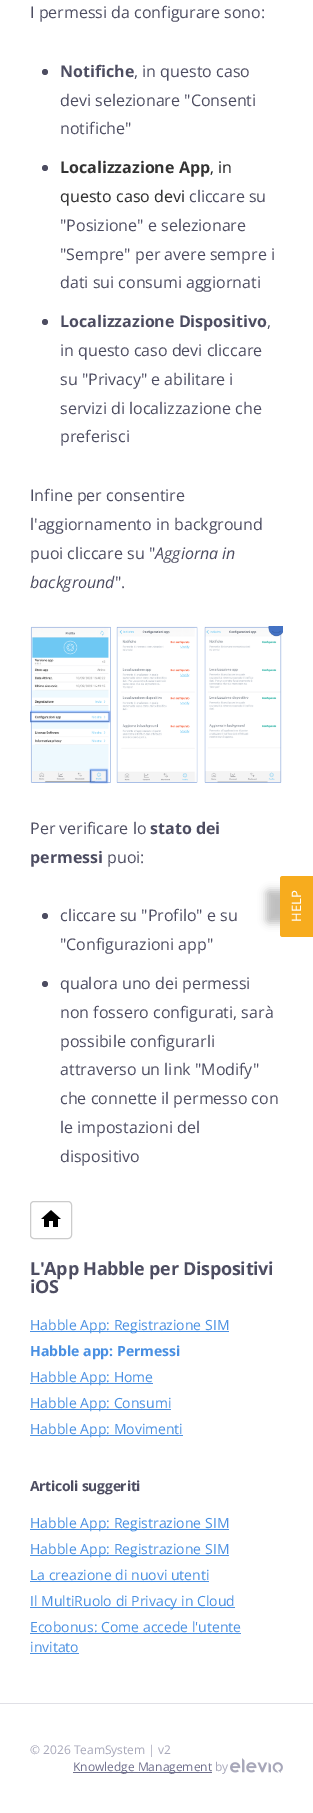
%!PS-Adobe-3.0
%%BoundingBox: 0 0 313 1813
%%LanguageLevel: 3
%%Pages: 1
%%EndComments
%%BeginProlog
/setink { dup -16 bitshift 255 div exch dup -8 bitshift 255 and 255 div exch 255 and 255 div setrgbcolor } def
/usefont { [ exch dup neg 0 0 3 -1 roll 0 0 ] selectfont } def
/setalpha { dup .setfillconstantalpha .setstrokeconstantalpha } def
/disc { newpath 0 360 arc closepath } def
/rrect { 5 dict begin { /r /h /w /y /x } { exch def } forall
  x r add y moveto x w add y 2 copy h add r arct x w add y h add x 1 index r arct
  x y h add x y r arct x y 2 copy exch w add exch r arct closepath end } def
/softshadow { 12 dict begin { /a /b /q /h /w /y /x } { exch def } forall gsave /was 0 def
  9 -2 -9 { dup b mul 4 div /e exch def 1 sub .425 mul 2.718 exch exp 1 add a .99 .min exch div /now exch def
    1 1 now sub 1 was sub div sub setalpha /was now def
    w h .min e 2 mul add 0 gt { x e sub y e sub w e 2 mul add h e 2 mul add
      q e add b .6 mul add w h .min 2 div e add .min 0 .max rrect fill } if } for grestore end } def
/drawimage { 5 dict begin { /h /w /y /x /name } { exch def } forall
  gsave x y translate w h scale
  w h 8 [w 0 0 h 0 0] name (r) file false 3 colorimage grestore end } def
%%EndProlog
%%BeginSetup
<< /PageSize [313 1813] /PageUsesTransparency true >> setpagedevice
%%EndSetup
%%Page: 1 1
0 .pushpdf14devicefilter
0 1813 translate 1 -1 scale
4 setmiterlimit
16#FFFFFF setink
0 0 313 1813 rectfill
/OpenSans-Regular 16 usefont
16#4D4D61 setink
30 18 moveto (I permessi da configurare sono:) show
45 72 3 disc fill
/OpenSans-Bold 16 usefont
60 77 moveto (Notifiche) show
/OpenSans-Regular 16 usefont
[
    [(, in questo caso) 134 77]
    [(devi selezionare "Consenti) 60 106]
    [(notifiche") 60 134]
] { aload pop moveto show } forall
45 168 3 disc fill
/NotoSans-Bold 16 usefont
16#333333 setink
60 173 moveto (Localizzazione App) show
/NotoSans-Regular 16 usefont
210 173 moveto (, in) show
60 202 moveto (questo caso devi) show
/OpenSans-Regular 16 usefont
16#4D4D61 setink
[
    [(cliccare su) 189 202]
    [("Posizione" e selezionare) 60 231]
    [("Sempre" per avere sempre i) 60 260]
    [(dati sui consumi aggiornati) 60 288]
] { aload pop moveto show } forall
45 322 3 disc fill
/OpenSans-Bold 16 usefont
60 327 moveto (Localizzazione Dispositivo) show
/OpenSans-Regular 16 usefont
[
    [(,) 267 327]
    [(in questo caso devi cliccare) 60 356]
    [(su "Privacy" e abilitare i) 60 385]
    [(servizi di localizzazione che) 60 414]
    [(preferisci) 60 442]
    [(Infine per consentire) 30 501]
    [(l'aggiornamento in background) 30 530]
    [(puoi cliccare su ") 30 559]
] { aload pop moveto show } forall
/OpenSans-Italic 16 usefont
155 559 moveto (Aggiorna in) show
30 588 moveto (background) show
/OpenSans-Regular 16 usefont
115 588 moveto (".) show
(img1.raw) 30 626 253 158 drawimage
30 834 moveto (Per verificare lo) show
/OpenSans-Bold 16 usefont
150 834 moveto (stato dei) show
30 863 moveto (permessi) show
/OpenSans-Regular 16 usefont
107 863 moveto (puoi:) show
45 916 3 disc fill
60 921 moveto (cliccare su "Profilo" e su) show
60 950 moveto ("Configurazioni app") show
45 984 3 disc fill
[
    [(qualora uno dei permessi) 60 989]
    [(non fossero configurati, sarà) 60 1018]
    [(possibile configurarli) 60 1047]
    [(attraverso un link "Modify") 60 1075]
    [(che connette il permesso con) 60 1104]
    [(le impostazioni del) 60 1133]
    [(dispositivo) 60 1162]
] { aload pop moveto show } forall
16#CCCCCC setink
30.5 1201.5 41 37 3.5 rrect stroke
(img2.raw) 41 1210 20 17 drawimage
/OpenSans-Bold 18 usefont
16#4D4D61 setink
30 1275 moveto -0.3 0 (L'App Habble per Dispositivi) ashow
30 1293 moveto -0.3 0 (iOS) ashow
16#4A90E2 setink
30 1331 199 1 rectfill
/OpenSans-Regular 14 usefont
30 1330 moveto (Habble App: Registrazione SIM) show
/OpenSans-Bold 14 usefont
30 1356 moveto (Habble app: Permessi) show
30 1383 123 1 rectfill
/OpenSans-Regular 14 usefont
30 1382 moveto (Habble App: Home) show
30 1409 141 1 rectfill
30 1408 moveto (Habble App: Consumi) show
30 1435 153 1 rectfill
30 1434 moveto (Habble App: Movimenti) show
/OpenSans-Bold 14 usefont
16#4D4D61 setink
30 1491 moveto -0.3 0 (Articoli suggeriti) ashow
16#4A90E2 setink
30 1529 199 1 rectfill
/OpenSans-Regular 14 usefont
30 1528 moveto (Habble App: Registrazione SIM) show
30 1555 199 1 rectfill
30 1554 moveto (Habble App: Registrazione SIM) show
30 1580 moveto (La creazione di nuovi utenti) show
30 1581 179 1 rectfill
30 1607 205 1 rectfill
30 1606 moveto (Il MultiRuolo di Privacy in Cloud) show
30 1632 moveto (Ecobonus: Come accede l'utente) show
30 1633 211 1 rectfill
30 1652 moveto (invitato) show
30 1653 49 1 rectfill
16#E0E0E6 setink
0 1703 313 1 rectfill
/OpenSans-Regular 12 usefont
16#A7A7B9 setink
30 1754 moveto (© 2026 TeamSystem | v2) show
16#6F6F8C setink
73 1772 139 1 rectfill
73 1771 moveto (Knowledge Management) show
16#A7A7B9 setink
215 1771 moveto (by) show
(img3.raw) 230 1758 53 15 drawimage
16#000000 setink
266 890 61 33 3 4 0.25 softshadow
16#F7AC1E setink
280 934 moveto 280 879 lineto 280 877 281 876 283 876 curveto 313 876 lineto 313 937 lineto 283 937 lineto 281 937 280 936 280 934 curveto closepath fill
/NotoSans-Regular 13 usefont
16#FFFFFF setink
gsave 301 922 translate -90 rotate 0 0 moveto (HELP) show grestore
.poppdf14devicefilter showpage
%%EOF
